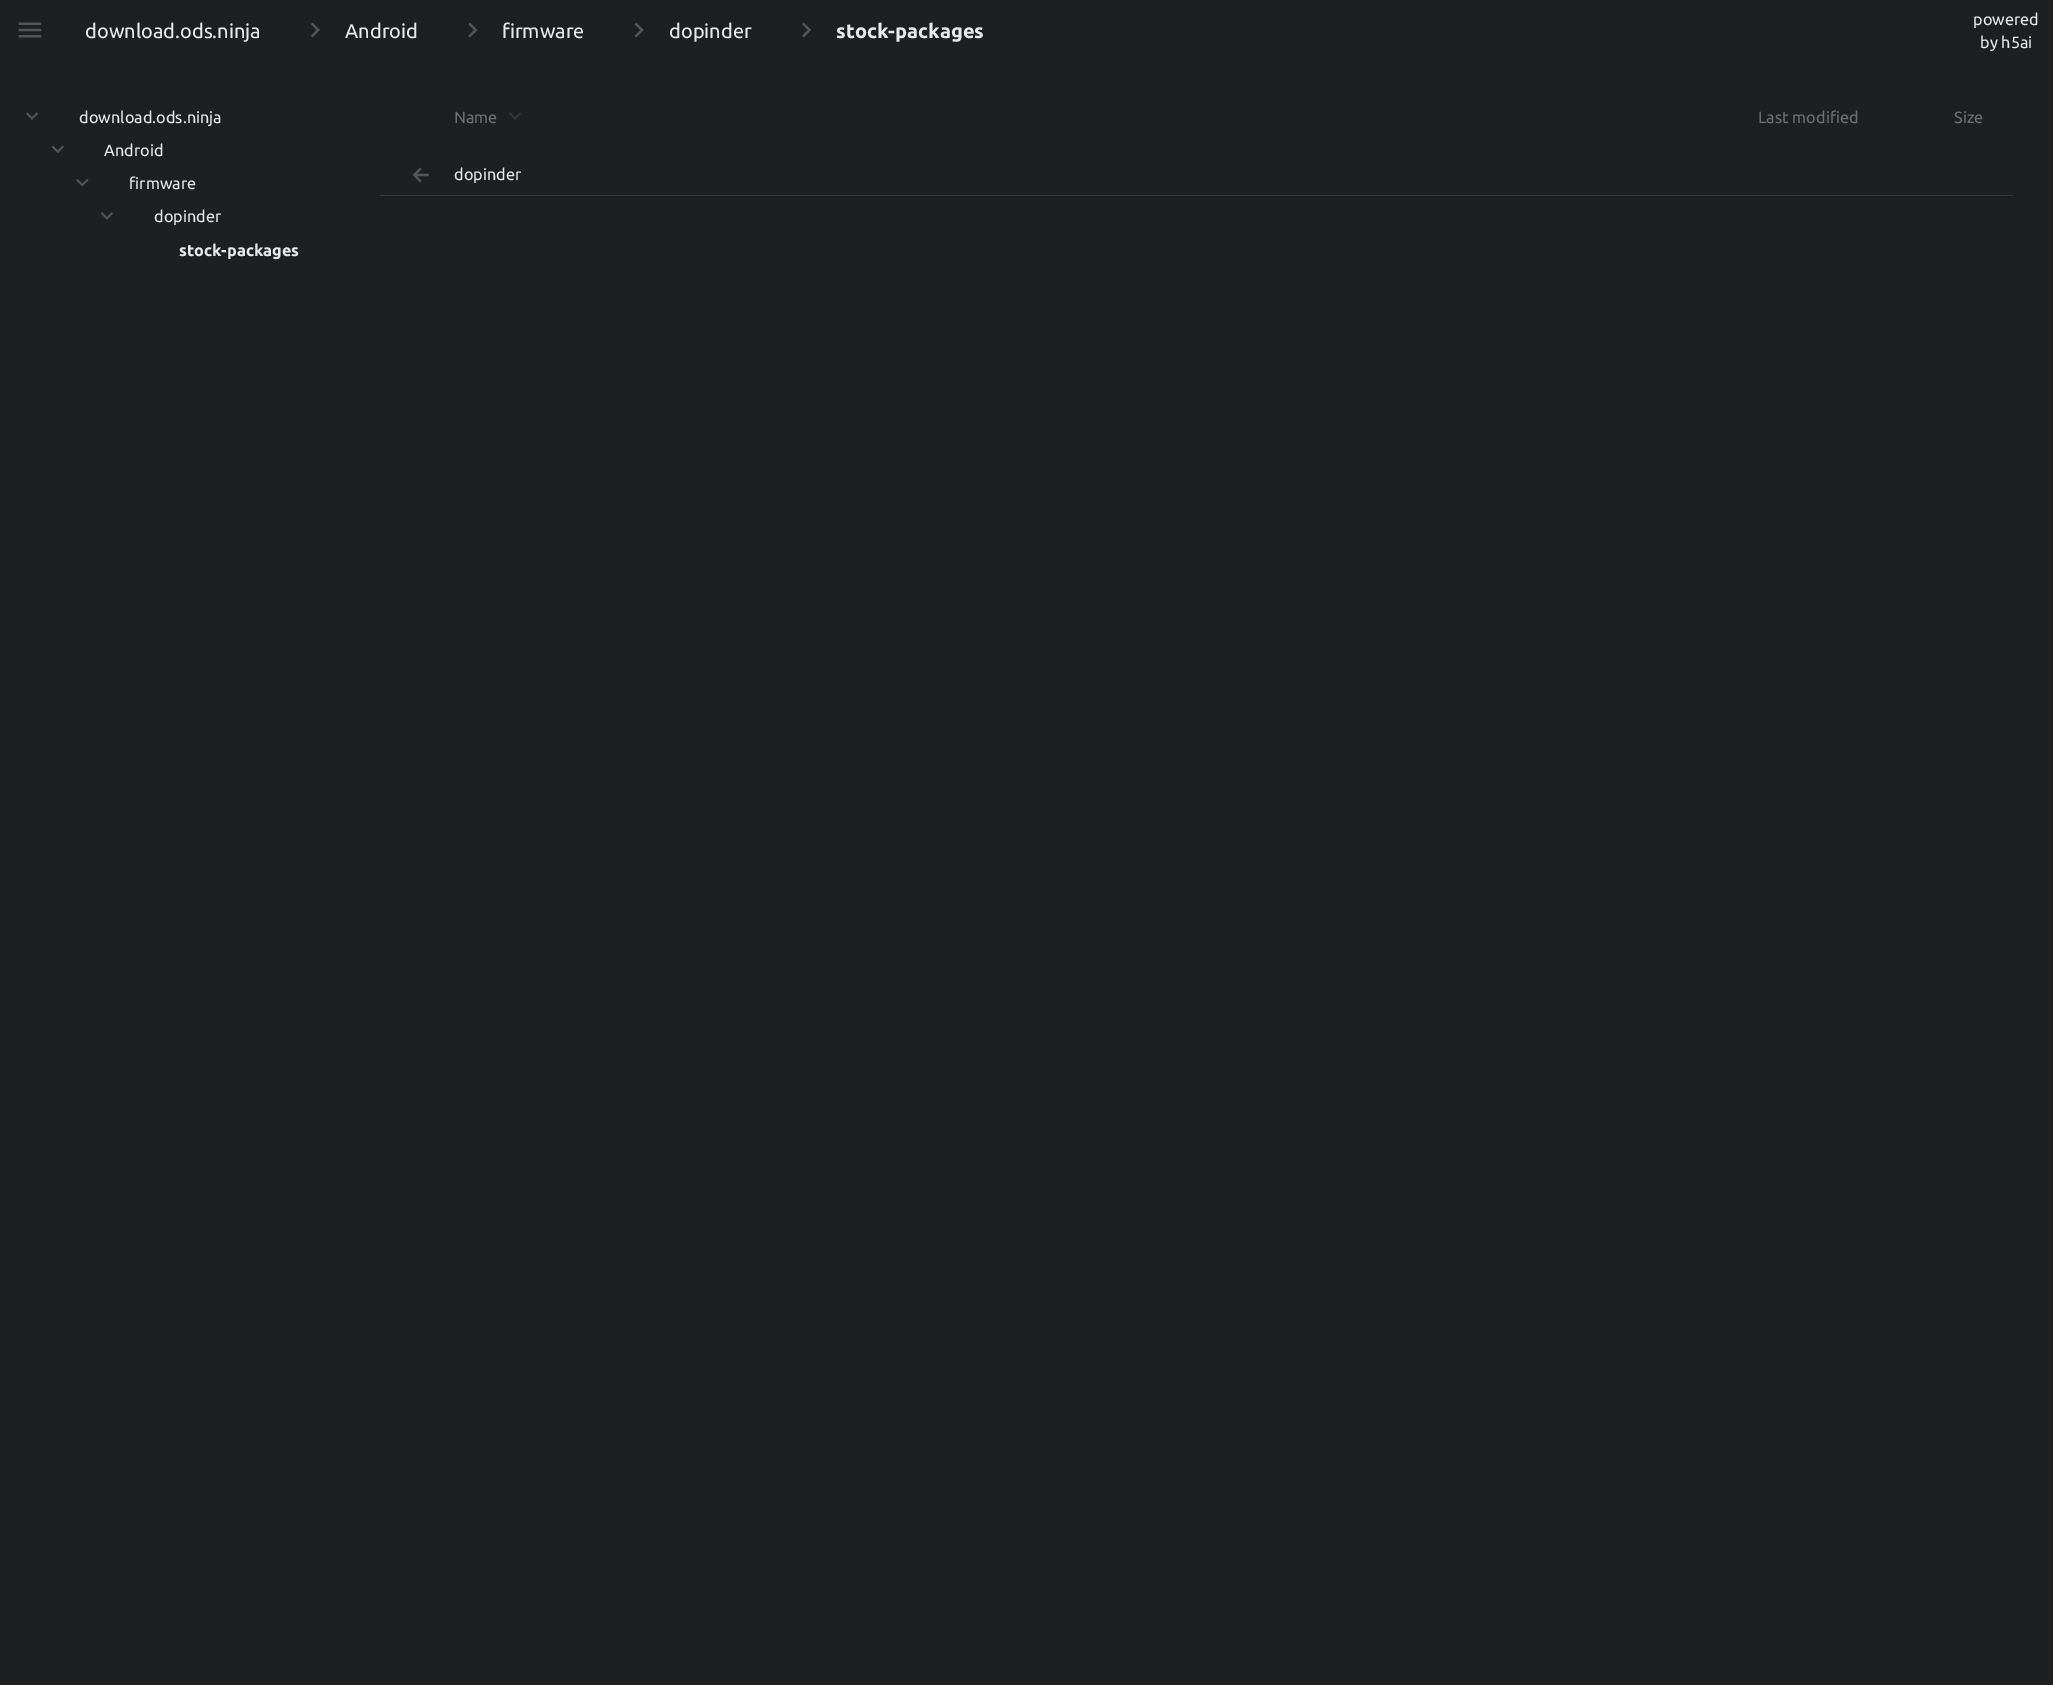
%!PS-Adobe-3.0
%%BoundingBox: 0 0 2053 1685
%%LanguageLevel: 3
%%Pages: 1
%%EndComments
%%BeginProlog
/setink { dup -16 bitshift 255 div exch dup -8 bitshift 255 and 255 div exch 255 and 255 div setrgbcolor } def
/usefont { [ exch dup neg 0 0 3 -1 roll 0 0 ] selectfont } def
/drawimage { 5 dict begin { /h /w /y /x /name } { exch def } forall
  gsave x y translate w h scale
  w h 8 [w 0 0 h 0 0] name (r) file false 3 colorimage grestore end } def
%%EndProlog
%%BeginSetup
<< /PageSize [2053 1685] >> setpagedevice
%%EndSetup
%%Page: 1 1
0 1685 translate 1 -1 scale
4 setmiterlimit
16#1D1F21 setink
0 0 2053 1685 rectfill
(img1.raw) 18 22 24 16 drawimage
/Ubuntu-Regular 20 usefont
16#E9E9E9 setink
85 38 moveto (download.ods.ninja) show
(img2.raw) 311 22 9 16 drawimage
345 38 moveto (Android) show
(img3.raw) 468 22 10 16 drawimage
502 38 moveto (firmware) show
(img4.raw) 634 22 10 16 drawimage
669 38 moveto (dopinder) show
(img5.raw) 802 22 9 16 drawimage
/Ubuntu-Bold 20 usefont
836 38 moveto (stock-packages) show
/Ubuntu-Regular 16.25 usefont
1973 25 moveto (powered) show
1980 48 moveto (by h5ai) show
(img6.raw) 26 112 13 8 drawimage
79 123 moveto (download.ods.ninja) show
(img7.raw) 51 145 13 8 drawimage
104 156 moveto (Android) show
(img8.raw) 76 179 13 8 drawimage
129 189 moveto (firmware) show
(img9.raw) 100 212 13 8 drawimage
154 222 moveto (dopinder) show
/Ubuntu-Bold 16.25 usefont
179 256 moveto (stock-packages) show
/Ubuntu-Regular 16.25 usefont
16#6F7071 setink
454 123 moveto (Name) show
(img10.raw) 509 112 12 8 drawimage
1758 123 moveto (Last modified) show
1954 123 moveto (Size) show
16#343638 setink
380 195 1633 1 rectfill
(img11.raw) 412 167 17 16 drawimage
16#E9E9E9 setink
454 180 moveto (dopinder) show
showpage
%%EOF
